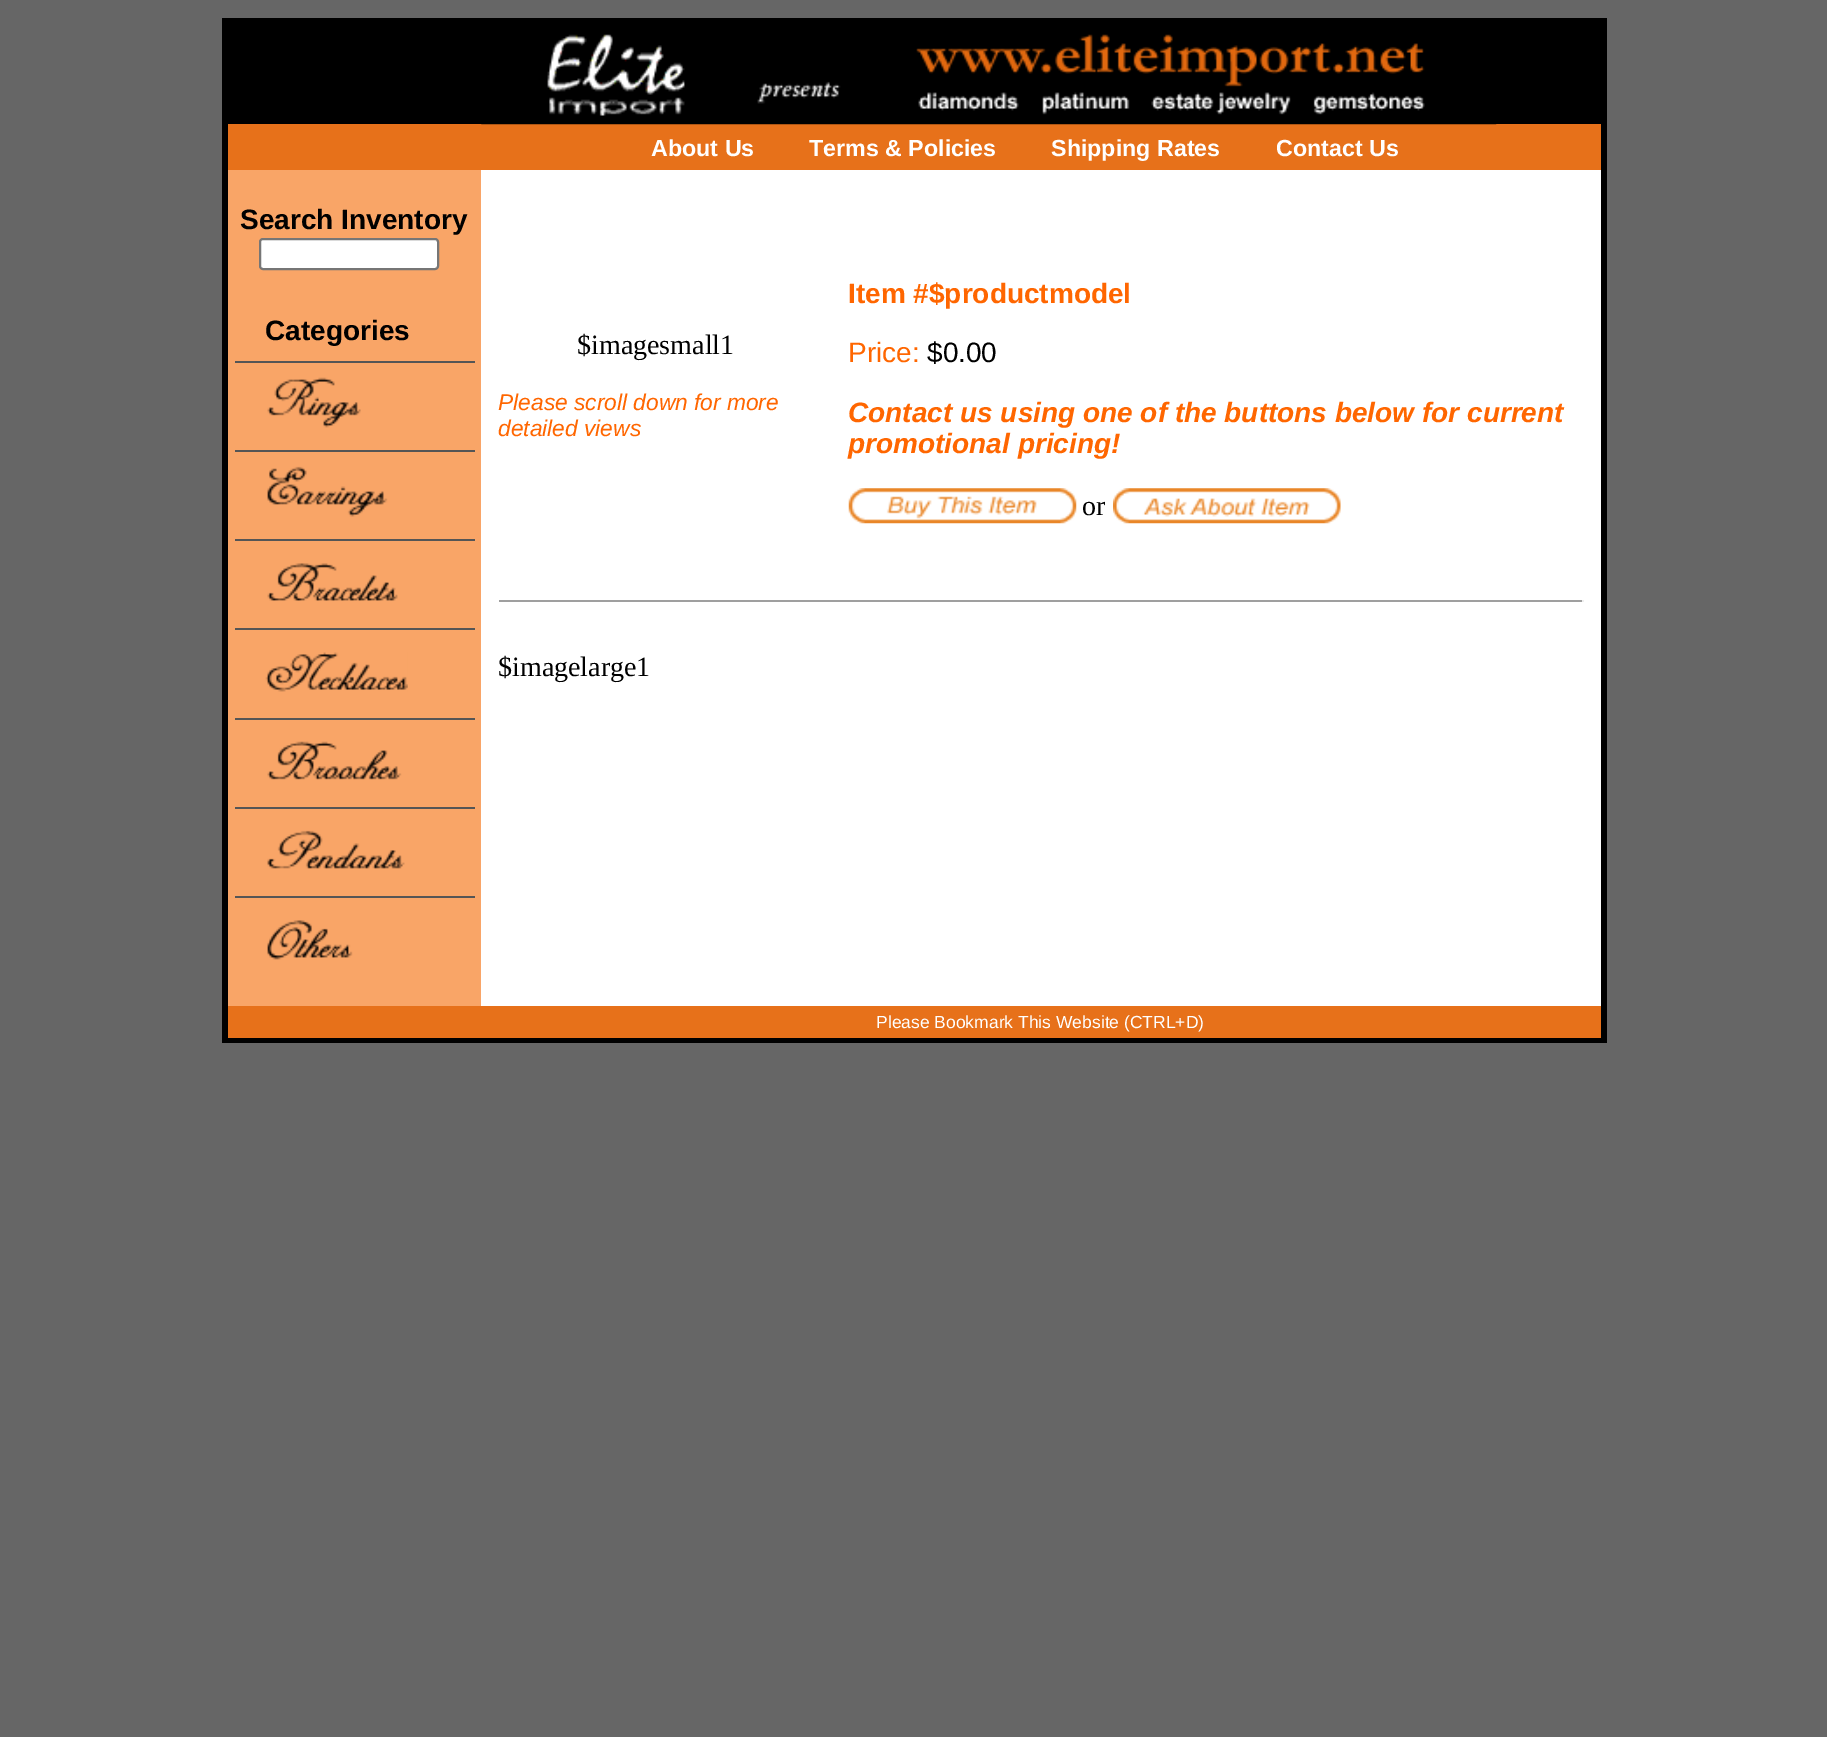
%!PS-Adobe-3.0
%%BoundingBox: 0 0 1827 1737
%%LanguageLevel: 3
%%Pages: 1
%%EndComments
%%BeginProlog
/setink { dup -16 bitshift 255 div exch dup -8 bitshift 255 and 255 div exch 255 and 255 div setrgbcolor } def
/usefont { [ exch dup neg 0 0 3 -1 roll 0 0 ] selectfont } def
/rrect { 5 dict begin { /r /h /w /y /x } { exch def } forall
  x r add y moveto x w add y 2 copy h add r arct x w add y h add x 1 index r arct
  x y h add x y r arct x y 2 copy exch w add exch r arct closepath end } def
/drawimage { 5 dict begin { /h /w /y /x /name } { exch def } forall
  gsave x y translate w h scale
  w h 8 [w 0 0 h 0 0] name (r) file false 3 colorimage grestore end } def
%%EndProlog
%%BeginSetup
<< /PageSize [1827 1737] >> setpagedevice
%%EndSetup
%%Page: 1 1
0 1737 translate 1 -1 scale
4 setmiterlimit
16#666666 setink
0 0 1827 1737 rectfill
[
    [222 18 1385 1025 16#000000]
    [481 170 1120 836 16#FFFFFF]
    [228 124 1373 46 16#E7711A]
] { aload pop setink rectfill } forall
(img1.raw) 481 34 1016 91 drawimage
/LiberationSans-Bold 23.25 usefont
16#FFFFFF setink
[
    [(About Us) 651 156]
    [(Terms & Policies) 809 156]
    [(Shipping Rates) 1051 156]
    [(Contact Us) 1276 156]
] { aload pop moveto show } forall
16#F9A567 setink
228 170 253 836 rectfill
/LiberationSans-Bold 28 usefont
16#000000 setink
240 229 moveto (Search Inventory) show
16#FFFFFF setink
260 239 178 30 3 rrect gsave fill grestore
16#767676 setink
2 setlinewidth
stroke
16#000000 setink
265 340 moveto (Categories) show
16#555555 setink
235 361 240 2 rectfill
(img2.raw) 267 377 94 51 drawimage
235 450 240 2 rectfill
(img3.raw) 267 466 121 51 drawimage
235 539 240 2 rectfill
(img4.raw) 267 563 131 38 drawimage
235 628 240 2 rectfill
(img5.raw) 265 652 143 40 drawimage
235 718 240 2 rectfill
(img6.raw) 267 741 135 39 drawimage
235 807 240 2 rectfill
(img7.raw) 267 830 138 39 drawimage
235 896 240 2 rectfill
(img8.raw) 267 920 86 40 drawimage
/LiberationSerif-Regular 28 usefont
16#000000 setink
577 354 moveto ($imagesmall1) show
/LiberationSans-Italic 22.75 usefont
16#FF6600 setink
498 410 moveto (Please scroll down for more) show
498 436 moveto (detailed views) show
/LiberationSans-Bold 28 usefont
848 303 moveto (Item #$productmodel) show
/LiberationSans-Regular 28 usefont
848 362 moveto (Price:) show
16#000000 setink
927 362 moveto ($0.00) show
/LiberationSans-BoldItalic 28 usefont
16#FF6600 setink
848 422 moveto (Contact us using one of the buttons below for current) show
848 453 moveto (promotional pricing!) show
(img9.raw) 848 488 229 36 drawimage
/LiberationSerif-Regular 28 usefont
16#000000 setink
1082 515 moveto (or) show
(img10.raw) 1113 488 228 36 drawimage
16#9F9F9F setink
499 600 1085 2 rectfill
16#EEEEEE setink
1582 600 2 2 rectfill
16#000000 setink
498 676 moveto ($imagelarge1) show
16#E7711A setink
228 1006 1373 32 rectfill
/LiberationSans-Regular 17.5 usefont
16#FFFFFF setink
876 1028 moveto (Please Bookmark This Website \(CTRL+D\)) show
showpage
%%EOF
